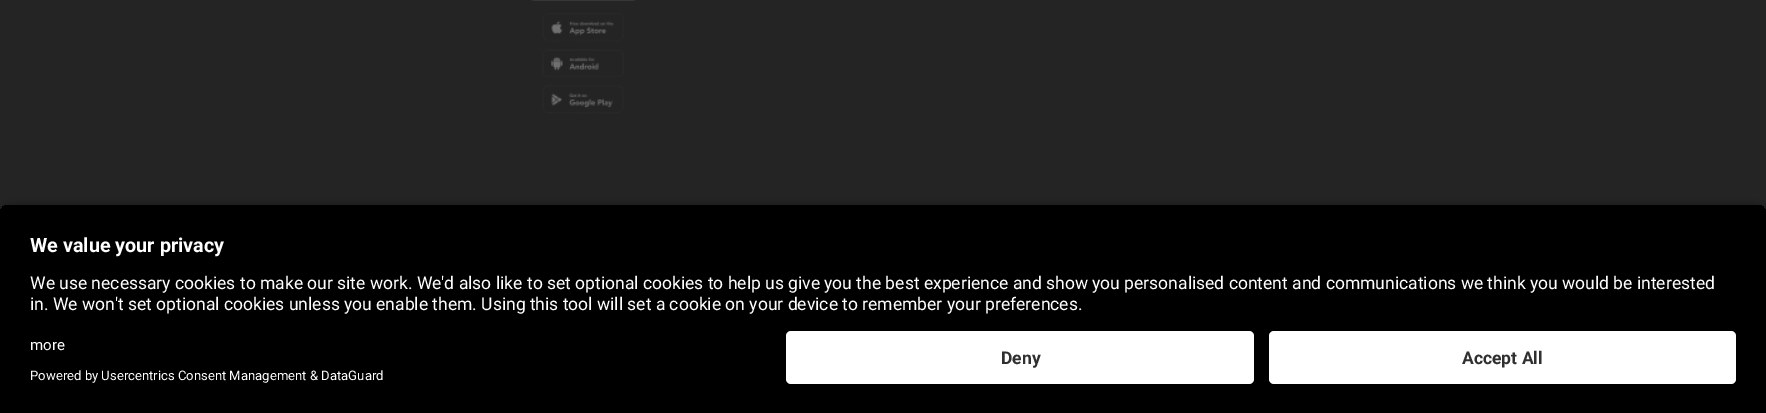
%!PS-Adobe-3.0
%%BoundingBox: 0 0 1766 413
%%LanguageLevel: 3
%%Pages: 1
%%EndComments
%%BeginProlog
/setink { dup -16 bitshift 255 div exch dup -8 bitshift 255 and 255 div exch 255 and 255 div setrgbcolor } def
/usefont { [ exch dup neg 0 0 3 -1 roll 0 0 ] selectfont } def
/setalpha { dup .setfillconstantalpha .setstrokeconstantalpha } def
/rrect { 5 dict begin { /r /h /w /y /x } { exch def } forall
  x r add y moveto x w add y 2 copy h add r arct x w add y h add x 1 index r arct
  x y h add x y r arct x y 2 copy exch w add exch r arct closepath end } def
/softshadow { 12 dict begin { /a /b /q /h /w /y /x } { exch def } forall gsave /was 0 def
  9 -2 -9 { dup b mul 4 div /e exch def 1 sub .425 mul 2.718 exch exp 1 add a .99 .min exch div /now exch def
    1 1 now sub 1 was sub div sub setalpha /was now def
    w h .min e 2 mul add 0 gt { x e sub y e sub w e 2 mul add h e 2 mul add
      q e add b .6 mul add w h .min 2 div e add .min 0 .max rrect fill } if } for grestore end } def
/drawimage { 5 dict begin { /h /w /y /x /name } { exch def } forall
  gsave x y translate w h scale
  w h 8 [w 0 0 h 0 0] name (r) file false 3 colorimage grestore end } def
%%EndProlog
%%BeginSetup
<< /PageSize [1766 413] /PageUsesTransparency true >> setpagedevice
%%EndSetup
%%Page: 1 1
0 .pushpdf14devicefilter
0 413 translate 1 -1 scale
4 setmiterlimit
16#242424 setink
0 0 1766 413 rectfill
(img1.raw) 531 0 105 114 drawimage
16#000000 setink
0 208 1766 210 10 4.5 0.8 softshadow
gsave
10 204 moveto 1756 204 lineto 1761.5 204 1766 208.5 1766 214 curveto 1766 321 lineto 0 321 lineto 0 214 lineto 0 208.5 4.5 204 10 204 curveto closepath clip newpath
0 205 1766 116 rectfill
grestore
/Roboto-Bold 19.75 usefont
16#FFFFFF setink
30 252 moveto (We value your privacy) show
/Roboto-Regular 17.5 usefont
30 289 moveto (We use necessary cookies to make our site work. We'd also like to set optional cookies to help us give you the best experience and show you personalised content and communications we think you would be interested) show
30 310 moveto (in. We won't set optional cookies unless you enable them. Using this tool will set a cookie on your device to remember your preferences.) show
16#000000 setink
0 321 1766 92 rectfill
/Roboto-Regular 15 usefont
16#FFFFFF setink
30 350 moveto (more) show
/Roboto-Regular 13.1 usefont
30 380 moveto (Powered by Usercentrics Consent Management & DataGuard) show
786 331 468 53 5 rrect fill
/Roboto-Bold 17.5 usefont
16#303030 setink
1001 364 moveto (Deny) show
16#FFFFFF setink
1269 331 467 53 5 rrect fill
16#303030 setink
1462 364 moveto (Accept All) show
.poppdf14devicefilter showpage
%%EOF
